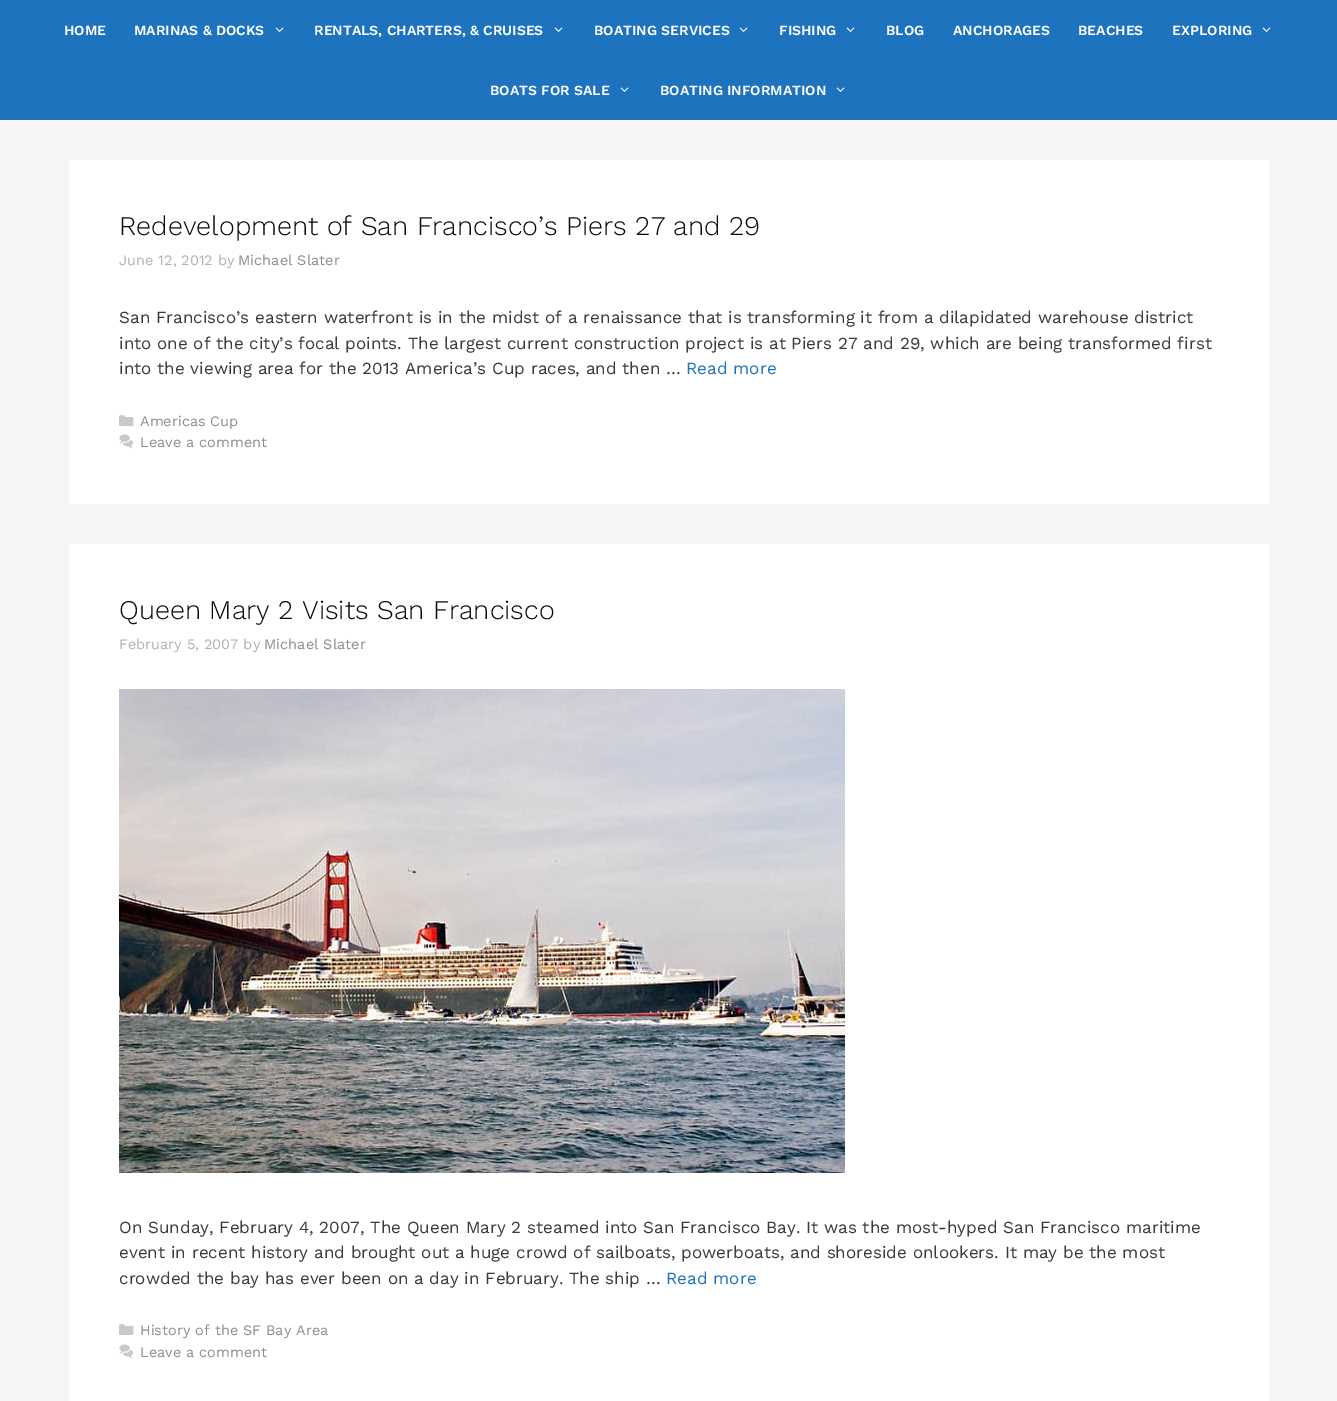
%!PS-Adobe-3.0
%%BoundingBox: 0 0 1337 1401
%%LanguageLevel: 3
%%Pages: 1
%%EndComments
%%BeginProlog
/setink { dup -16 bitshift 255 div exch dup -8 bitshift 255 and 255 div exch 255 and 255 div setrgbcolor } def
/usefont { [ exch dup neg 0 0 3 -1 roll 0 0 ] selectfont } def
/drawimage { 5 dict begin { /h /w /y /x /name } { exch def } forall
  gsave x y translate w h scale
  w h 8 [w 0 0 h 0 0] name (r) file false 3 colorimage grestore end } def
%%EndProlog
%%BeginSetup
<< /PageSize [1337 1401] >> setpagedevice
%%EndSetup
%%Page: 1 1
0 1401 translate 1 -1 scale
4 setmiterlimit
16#F7F4F6 setink
0 0 1337 1401 rectfill
16#1E73BE setink
0 0 1337 120 rectfill
/WorkSans-SemiBold 14 usefont
16#FFFFFF setink
64 35 moveto (HOME) show
134 35 moveto (MARINAS & DOCKS) show
(img1.raw) 275 27 9 5 drawimage
314 35 moveto (RENTALS, CHARTERS, & CRUISES) show
(img1.raw) 554 27 9 5 drawimage
594 35 moveto (BOATING SERVICES) show
(img1.raw) 739 27 9 5 drawimage
779 35 moveto (FISHING) show
(img1.raw) 846 27 9 5 drawimage
[
    [(BLOG) 886 35]
    [(ANCHORAGES) 953 35]
    [(BEACHES) 1078 35]
    [(EXPLORING) 1172 35]
] { aload pop moveto show } forall
(img1.raw) 1262 27 9 5 drawimage
490 95 moveto (BOATS FOR SALE) show
(img1.raw) 620 87 9 5 drawimage
660 95 moveto (BOATING INFORMATION) show
(img1.raw) 836 87 9 5 drawimage
69 160 1200 344 rectfill
/WorkSans-Light 27 usefont
16#0A0A0A setink
119 235 moveto (Redevelopment of San Francisco’s Piers 27 and 29) show
/WorkSans-Regular 14.5 usefont
16#B2B2B2 setink
119 265 moveto (June 12, 2012 by) show
16#8E8E8E setink
238 265 moveto (Michael Slater) show
/WorkSans-Regular 17 usefont
16#3A3A3A setink
[
    [(San Francisco’s eastern waterfront is in the midst of a renaissance that is transforming it from a dilapidated warehouse district) 119 323]
    [(into one of the city’s focal points. The largest current construction project is at Piers 27 and 29, which are being transformed first) 119 349]
    [(into the viewing area for the 2013 America’s Cup races, and then …) 119 374]
] { aload pop moveto show } forall
16#1E73BE setink
686 374 moveto (Read more) show
(img2.raw) 119 415 15 11 drawimage
/WorkSans-Regular 14.5 usefont
16#8E8E8E setink
140 426 moveto (Americas Cup) show
(img3.raw) 119 434 14 15 drawimage
140 447 moveto (Leave a comment) show
16#FFFFFF setink
69 544 1200 857 rectfill
/WorkSans-Light 27 usefont
16#0A0A0A setink
119 619 moveto (Queen Mary 2 Visits San Francisco) show
/WorkSans-Regular 14.5 usefont
16#B2B2B2 setink
119 649 moveto (February 5, 2007 by) show
16#8E8E8E setink
264 649 moveto (Michael Slater) show
(img4.raw) 119 689 726 484 drawimage
/WorkSans-Regular 17 usefont
16#3A3A3A setink
[
    [(On Sunday, February 4, 2007, The Queen Mary 2 steamed into San Francisco Bay. It was the most-hyped San Francisco maritime) 119 1233]
    [(event in recent history and brought out a huge crowd of sailboats, powerboats, and shoreside onlookers. It may be the most) 119 1258]
    [(crowded the bay has ever been on a day in February. The ship …) 119 1284]
] { aload pop moveto show } forall
16#1E73BE setink
666 1284 moveto (Read more) show
(img2.raw) 119 1324 15 11 drawimage
/WorkSans-Regular 14.5 usefont
16#8E8E8E setink
140 1335 moveto (History of the SF Bay Area) show
(img3.raw) 119 1344 14 15 drawimage
140 1357 moveto (Leave a comment) show
showpage
%%EOF
